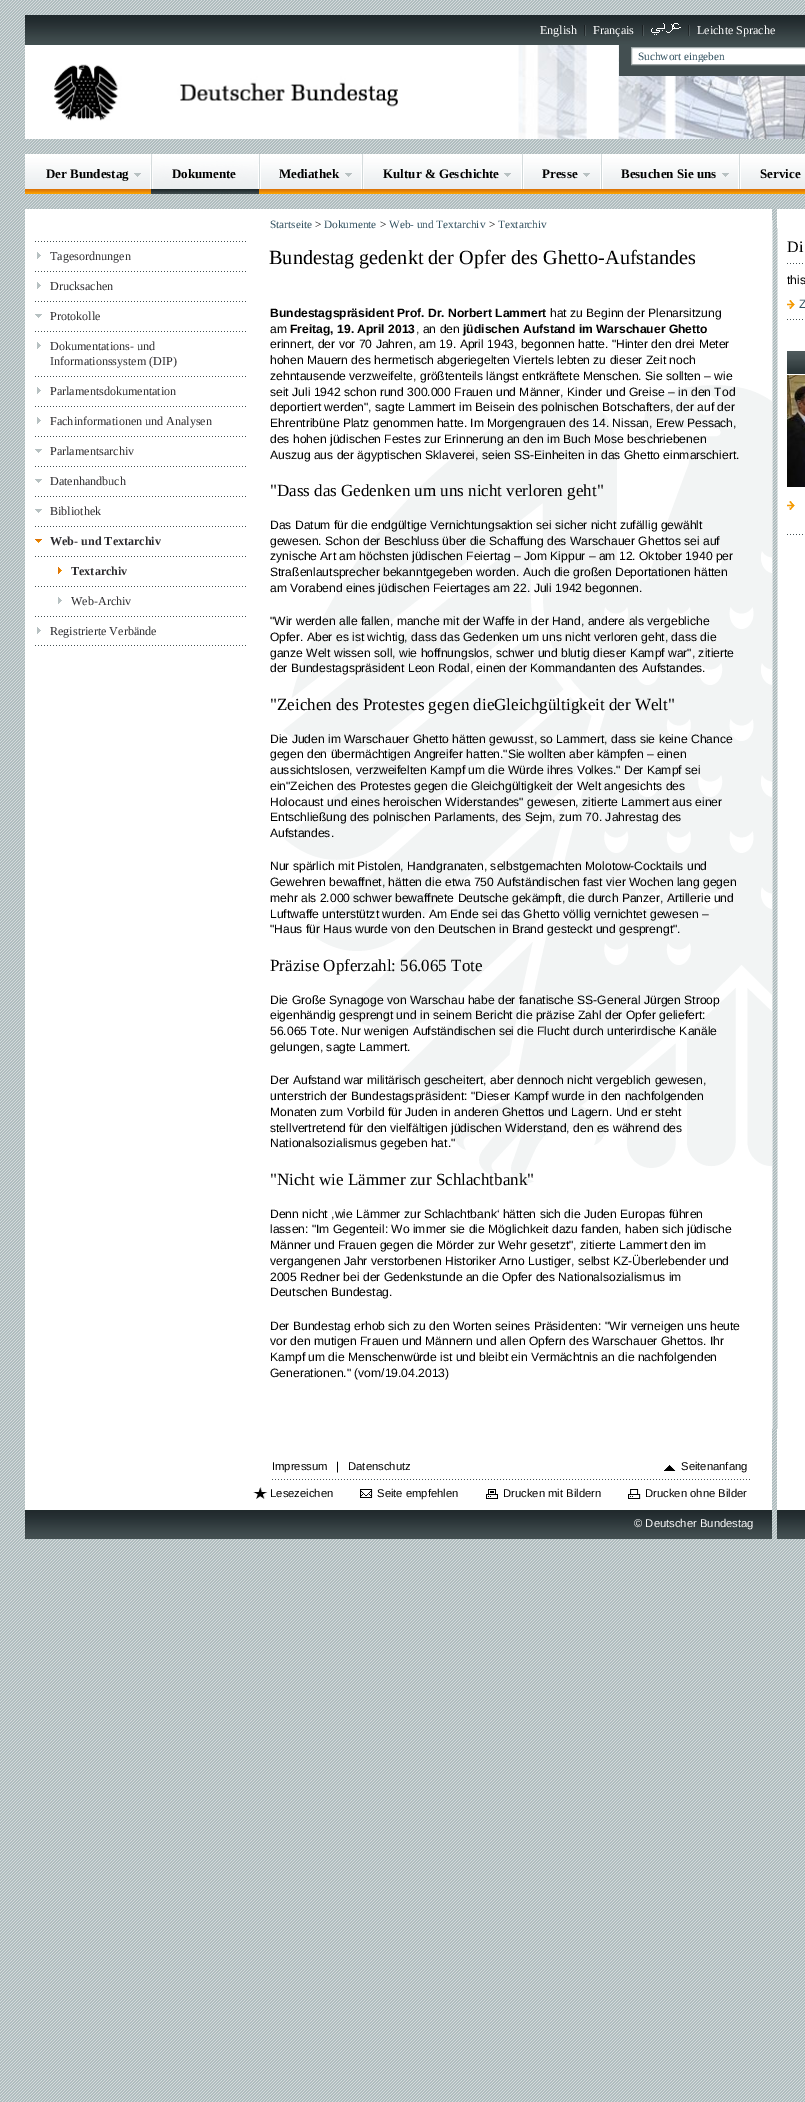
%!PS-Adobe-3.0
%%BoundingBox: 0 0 805 2102
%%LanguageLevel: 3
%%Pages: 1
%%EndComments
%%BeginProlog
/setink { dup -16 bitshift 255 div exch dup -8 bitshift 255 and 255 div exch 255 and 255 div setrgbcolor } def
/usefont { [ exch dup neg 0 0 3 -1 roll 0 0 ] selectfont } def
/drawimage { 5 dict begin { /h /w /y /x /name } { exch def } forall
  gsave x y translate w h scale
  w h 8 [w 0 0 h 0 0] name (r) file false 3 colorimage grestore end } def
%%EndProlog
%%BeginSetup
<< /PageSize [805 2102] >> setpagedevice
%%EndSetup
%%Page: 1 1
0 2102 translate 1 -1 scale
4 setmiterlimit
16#FFFFFF setink
0 0 805 2102 rectfill
(img1.raw) 0 0 805 2102 drawimage
(img2.raw) 25 15 780 30 drawimage
/LiberationSerif-Regular 12.1 usefont
540 34 moveto (English) show
(img3.raw) 584 25 2 11 drawimage
593 34 moveto (Français) show
(img3.raw) 642 25 2 11 drawimage
(img4.raw) 651 23 30 12 drawimage
(img3.raw) 688 25 2 11 drawimage
697 34 moveto (Leichte Sprache) show
25 45 493 94 rectfill
(img5.raw) 518 45 287 94 drawimage
16#434F51 setink
619 45 186 31 rectfill
16#FFFFFF setink
631.5 47.5 moveto 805.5 47.5 lineto 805.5 64.5 lineto 631.5 64.5 lineto closepath gsave fill grestore
16#A0A9A9 setink
stroke
gsave
638 50 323 12 rectclip
/LiberationSerif-Regular 11.25 usefont
16#31505F setink
638 60 moveto (Suchwort eingeben) show
grestore
(img6.raw) 54 64 344 57 drawimage
(img7.raw) 25 154 780 40 drawimage
16#FFFFFF setink
150 165 1 24 rectfill
(img8.raw) 134 173 7 4 drawimage
/LiberationSerif-Bold 13 usefont
16#000000 setink
46 178 moveto (Der Bundestag) show
(img9.raw) 151 154 108 40 drawimage
16#FFFFFF setink
258 164 1 25 rectfill
16#000000 setink
172 178 moveto (Dokumente) show
(img10.raw) 259 154 2 35 drawimage
16#FFFFFF setink
361 165 1 24 rectfill
(img8.raw) 345 173 7 4 drawimage
16#000000 setink
279 178 moveto (Mediathek) show
(img11.raw) 362 154 2 35 drawimage
16#FFFFFF setink
521 165 1 24 rectfill
(img8.raw) 504 173 7 4 drawimage
16#000000 setink
383 178 moveto (Kultur & Geschichte) show
(img10.raw) 522 154 2 35 drawimage
16#FFFFFF setink
600 165 1 24 rectfill
(img8.raw) 583 173 7 4 drawimage
16#000000 setink
542 178 moveto (Presse) show
(img10.raw) 601 154 2 35 drawimage
16#FFFFFF setink
738 165 1 24 rectfill
(img8.raw) 722 173 7 4 drawimage
16#000000 setink
621 178 moveto (Besuchen Sie uns) show
(img10.raw) 739 154 2 35 drawimage
760 178 moveto (Service) show
[
    [25 209 747 19 16#FFFFFF]
    [777 209 28 19 16#FFFFFF]
    [25 228 244 1201 16#FFFFFF]
] { aload pop setink rectfill } forall
(img12.raw) 269 220 536 1209 drawimage
(img13.raw) 35 645 211 1 drawimage
(img13.raw) 35 241 211 1 drawimage
(img14.raw) 37 252 4 7 drawimage
/LiberationSerif-Regular 12.1 usefont
16#2E2D30 setink
50 260 moveto (Tagesordnungen) show
(img13.raw) 35 271 211 1 drawimage
(img14.raw) 37 282 4 7 drawimage
50 290 moveto (Drucksachen) show
(img13.raw) 35 301 211 1 drawimage
(img15.raw) 35 314 7 4 drawimage
50 320 moveto (Protokolle) show
(img13.raw) 35 331 211 1 drawimage
(img14.raw) 37 342 4 7 drawimage
50 350 moveto (Dokumentations- und) show
50 365 moveto (Informationssystem \(DIP\)) show
(img13.raw) 35 376 211 1 drawimage
(img14.raw) 37 387 4 7 drawimage
50 395 moveto (Parlamentsdokumentation) show
(img13.raw) 35 406 211 1 drawimage
(img14.raw) 37 417 4 7 drawimage
50 425 moveto (Fachinformationen und Analysen) show
(img13.raw) 35 436 211 1 drawimage
(img15.raw) 35 449 7 4 drawimage
50 455 moveto (Parlamentsarchiv) show
(img13.raw) 35 466 211 1 drawimage
(img15.raw) 35 479 7 4 drawimage
50 485 moveto (Datenhandbuch) show
(img13.raw) 35 496 211 1 drawimage
(img15.raw) 35 509 7 4 drawimage
50 515 moveto (Bibliothek) show
(img13.raw) 35 526 211 1 drawimage
(img16.raw) 35 539 7 4 drawimage
/LiberationSerif-Bold 12.1 usefont
50 545 moveto (Web- und Textarchiv) show
(img13.raw) 35 556 211 1 drawimage
(img17.raw) 58 567 4 7 drawimage
71 575 moveto (Textarchiv) show
(img13.raw) 35 586 211 1 drawimage
(img14.raw) 58 597 4 7 drawimage
/LiberationSerif-Regular 12.1 usefont
71 605 moveto (Web-Archiv) show
(img13.raw) 35 616 211 1 drawimage
(img14.raw) 37 627 4 7 drawimage
50 635 moveto (Registrierte Verbände) show
/LiberationSerif-Regular 11.25 usefont
16#31505F setink
270 228 moveto (Startseite) show
16#000000 setink
315 228 moveto (>) show
16#31505F setink
324 228 moveto (Dokumente) show
16#000000 setink
380 228 moveto (>) show
16#31505F setink
389 228 moveto (Web- und Textarchiv) show
16#000000 setink
489 228 moveto (>) show
16#31505F setink
498 228 moveto (Textarchiv) show
(img18.raw) 283 385 489 798 drawimage
/LiberationSerif-Regular 20.2 usefont
16#000000 setink
269 264 moveto (Bundestag gedenkt der Opfer des Ghetto-Aufstandes) show
/LiberationSans-Bold 12.1 usefont
270 317 moveto (Bundestagspräsident Prof. Dr. Norbert Lammert) show
/LiberationSans-Regular 12.1 usefont
550 317 moveto (hat zu Beginn der Plenarsitzung) show
270 333 moveto (am) show
/LiberationSans-Bold 12.1 usefont
290 333 moveto (Freitag, 19. April 2013) show
/LiberationSans-Regular 12.1 usefont
416 333 moveto (, an den) show
/LiberationSans-Bold 12.1 usefont
463 333 moveto (jüdischen Aufstand im Warschauer Ghetto) show
/LiberationSans-Regular 12.1 usefont
[
    [(erinnert, der vor 70 Jahren, am 19. April 1943, begonnen hatte. "Hinter den drei Meter) 270 348]
    [(hohen Mauern des hermetisch abgeriegelten Viertels lebten zu dieser Zeit noch) 270 364]
    [(zehntausende verzweifelte, größtenteils längst entkräftete Menschen. Sie sollten – wie) 270 380]
    [(seit Juli 1942 schon rund 300.000 Frauen und Männer, Kinder und Greise – in den Tod) 270 396]
    [(deportiert werden", sagte Lammert im Beisein des polnischen Botschafters, der auf der) 270 411]
    [(Ehrentribüne Platz genommen hatte. Im Morgengrauen des 14. Nissan, Erew Pessach,) 270 427]
    [(des hohen jüdischen Festes zur Erinnerung an den im Buch Mose beschriebenen) 270 443]
    [(Auszug aus der ägyptischen Sklaverei, seien SS-Einheiten in das Ghetto einmarschiert.) 270 459]
] { aload pop moveto show } forall
/LiberationSerif-Regular 17 usefont
270 496 moveto ("Dass das Gedenken um uns nicht verloren geht") show
/LiberationSans-Regular 12.1 usefont
[
    [(Das Datum für die endgültige Vernichtungsaktion sei sicher nicht zufällig gewählt) 270 529]
    [(gewesen. Schon der Beschluss über die Schaffung des Warschauer Ghettos sei auf) 270 545]
    [(zynische Art am höchsten jüdischen Feiertag – Jom Kippur – am 12. Oktober 1940 per) 270 560]
    [(Straßenlautsprecher bekanntgegeben worden. Auch die großen Deportationen hätten) 270 576]
    [(am Vorabend eines jüdischen Feiertages am 22. Juli 1942 begonnen.) 270 592]
    [("Wir werden alle fallen, manche mit der Waffe in der Hand, andere als vergebliche) 270 625]
    [(Opfer. Aber es ist wichtig, dass das Gedenken um uns nicht verloren geht, dass die) 270 641]
    [(ganze Welt wissen soll, wie hoffnungslos, schwer und blutig dieser Kampf war", zitierte) 270 657]
    [(der Bundestagspräsident Leon Rodal, einen der Kommandanten des Aufstandes.) 270 672]
] { aload pop moveto show } forall
/LiberationSerif-Regular 17 usefont
270 710 moveto ("Zeichen des Protestes gegen dieGleichgültigkeit der Welt") show
/LiberationSans-Regular 12.1 usefont
[
    [(Die Juden im Warschauer Ghetto hätten gewusst, so Lammert, dass sie keine Chance) 270 743]
    [(gegen den übermächtigen Angreifer hatten."Sie wollten aber kämpfen – einen) 270 758]
    [(aussichtslosen, verzweifelten Kampf um die Würde ihres Volkes." Der Kampf sei) 270 774]
    [(ein"Zeichen des Protestes gegen die Gleichgültigkeit der Welt angesichts des) 270 790]
    [(Holocaust und eines heroischen Widerstandes" gewesen, zitierte Lammert aus einer) 270 806]
    [(Entschließung des polnischen Parlaments, des Sejm, zum 70. Jahrestag des) 270 821]
    [(Aufstandes.) 270 837]
    [(Nur spärlich mit Pistolen, Handgranaten, selbstgemachten Molotow-Cocktails und) 270 870]
    [(Gewehren bewaffnet, hätten die etwa 750 Aufständischen fast vier Wochen lang gegen) 270 886]
    [(mehr als 2.000 schwer bewaffnete Deutsche gekämpft, die durch Panzer, Artillerie und) 270 902]
    [(Luftwaffe unterstützt wurden. Am Ende sei das Ghetto völlig vernichtet gewesen –) 270 918]
    [("Haus für Haus wurde von den Deutschen in Brand gesteckt und gesprengt".) 270 933]
] { aload pop moveto show } forall
/LiberationSerif-Regular 17 usefont
270 971 moveto (Präzise Opferzahl: 56.065 Tote) show
/LiberationSans-Regular 12.1 usefont
[
    [(Die Große Synagoge von Warschau habe der fanatische SS-General Jürgen Stroop) 270 1004]
    [(eigenhändig gesprengt und in seinem Bericht die präzise Zahl der Opfer geliefert:) 270 1019]
    [(56.065 Tote. Nur wenigen Aufständischen sei die Flucht durch unterirdische Kanäle) 270 1035]
    [(gelungen, sagte Lammert.) 270 1051]
    [(Der Aufstand war militärisch gescheitert, aber dennoch nicht vergeblich gewesen,) 270 1084]
    [(unterstrich der Bundestagspräsident: "Dieser Kampf wurde in den nachfolgenden) 270 1100]
    [(Monaten zum Vorbild für Juden in anderen Ghettos und Lagern. Und er steht) 270 1116]
    [(stellvertretend für den vielfältigen jüdischen Widerstand, den es während des) 270 1132]
    [(Nationalsozialismus gegeben hat.") 270 1147]
] { aload pop moveto show } forall
/LiberationSerif-Regular 17 usefont
270 1185 moveto ("Nicht wie Lämmer zur Schlachtbank") show
/LiberationSans-Regular 12.1 usefont
[
    [(Denn nicht ,wie Lämmer zur Schlachtbank‘ hätten sich die Juden Europas führen) 270 1218]
    [(lassen: "Im Gegenteil: Wo immer sie die Möglichkeit dazu fanden, haben sich jüdische) 270 1233]
    [(Männer und Frauen gegen die Mörder zur Wehr gesetzt", zitierte Lammert den im) 270 1249]
    [(vergangenen Jahr verstorbenen Historiker Arno Lustiger, selbst KZ-Überlebender und) 270 1265]
    [(2005 Redner bei der Gedenkstunde an die Opfer des Nationalsozialismus im) 270 1281]
    [(Deutschen Bundestag.) 270 1296]
    [(Der Bundestag erhob sich zu den Worten seines Präsidenten: "Wir verneigen uns heute) 270 1330]
    [(vor den mutigen Frauen und Männern und allen Opfern des Warschauer Ghettos. Ihr) 270 1345]
    [(Kampf um die Menschenwürde ist und bleibt ein Vermächtnis an die nachfolgenden) 270 1361]
    [(Generationen." \(vom/19.04.2013\)) 270 1377]
] { aload pop moveto show } forall
(img19.raw) 787 263 16 1 drawimage
/LiberationSerif-Regular 16 usefont
787 252 moveto (Di) show
(img19.raw) 787 319 16 1 drawimage
/LiberationSans-Regular 12.1 usefont
787 284 moveto (this) show
(img20.raw) 787 300 8 9 drawimage
16#31505F setink
799 308 moveto (Z) show
(img21.raw) 787 351 18 23 drawimage
(img22.raw) 787 375 18 112 drawimage
(img19.raw) 787 534 16 1 drawimage
(img20.raw) 787 501 8 9 drawimage
16#FFFFFF setink
25 1429 747 81 rectfill
/LiberationSans-Regular 11.25 usefont
16#000000 setink
[
    [(Impressum) 272 1470]
    [(|) 336 1470]
    [(Datenschutz) 348 1470]
] { aload pop moveto show } forall
(img23.raw) 664 1465 12 6 drawimage
681 1470 moveto (Seitenanfang) show
(img24.raw) 272 1479 478 1 drawimage
(img25.raw) 253 1487 15 12 drawimage
270 1497 moveto (Lesezeichen) show
(img26.raw) 360 1489 13 9 drawimage
377 1497 moveto (Seite empfehlen) show
(img27.raw) 486 1489 12 10 drawimage
503 1497 moveto (Drucken mit Bildern) show
(img28.raw) 628 1489 13 10 drawimage
645 1497 moveto (Drucken ohne Bilder) show
16#FFFFFF setink
777 1429 28 81 rectfill
(img29.raw) 25 1510 747 29 drawimage
634 1527 moveto (© Deutscher Bundestag) show
(img30.raw) 777 1510 28 29 drawimage
showpage
%%EOF
